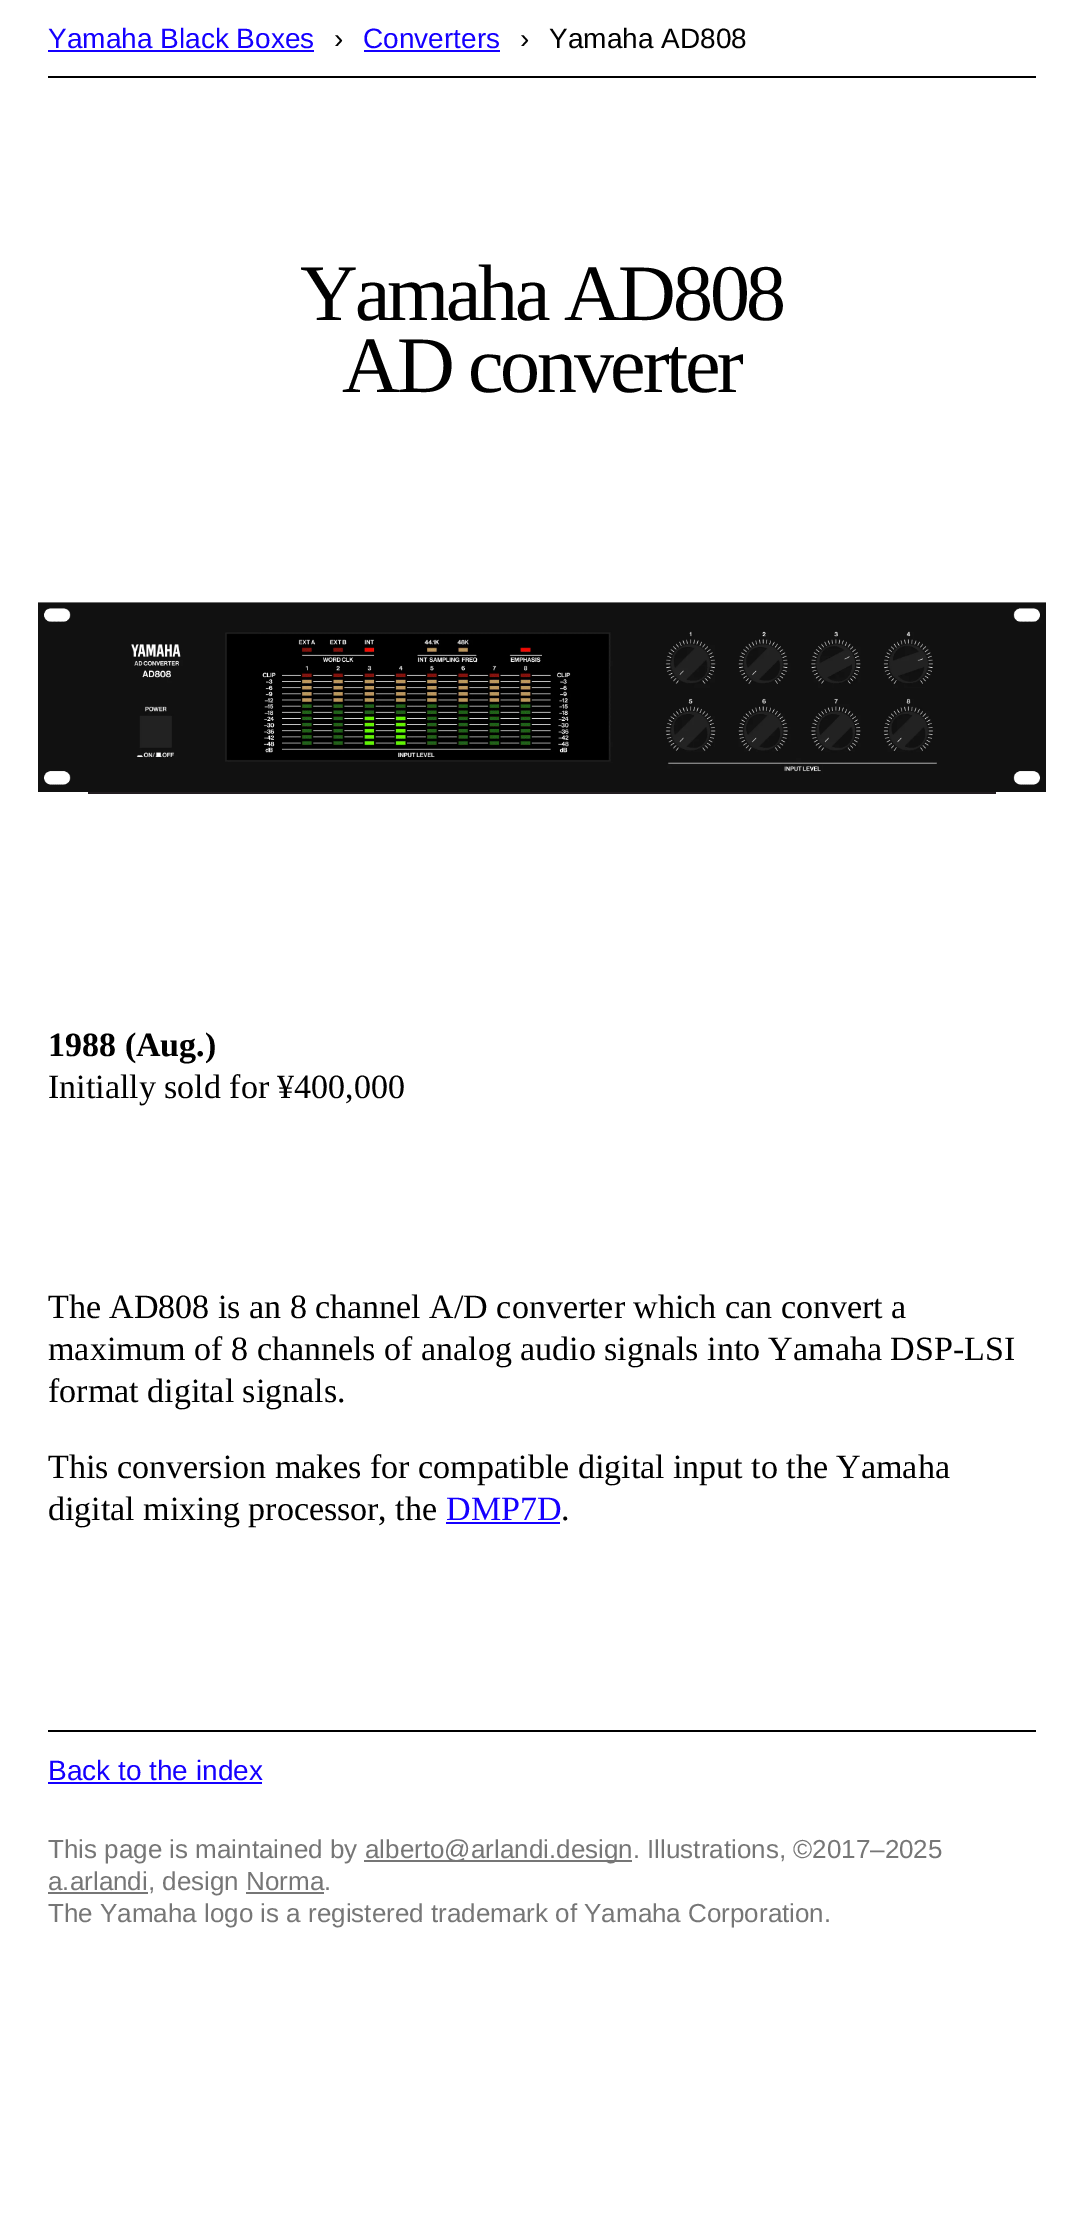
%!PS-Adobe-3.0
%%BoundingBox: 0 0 1084 2222
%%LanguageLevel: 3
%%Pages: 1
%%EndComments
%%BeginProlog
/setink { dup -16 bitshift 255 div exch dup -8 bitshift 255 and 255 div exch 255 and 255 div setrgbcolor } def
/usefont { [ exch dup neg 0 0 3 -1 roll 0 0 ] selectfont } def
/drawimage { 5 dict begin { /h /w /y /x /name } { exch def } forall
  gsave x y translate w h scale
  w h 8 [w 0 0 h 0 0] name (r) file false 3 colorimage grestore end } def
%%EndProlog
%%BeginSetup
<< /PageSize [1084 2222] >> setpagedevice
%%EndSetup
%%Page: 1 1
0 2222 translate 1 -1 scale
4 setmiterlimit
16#FFFFFF setink
0 0 1084 2222 rectfill
/LiberationSans-Regular 28 usefont
16#1500FF setink
48 48 moveto (Yamaha Black Boxes) show
48 50 266 2 rectfill
16#000000 setink
334 48 moveto (›) show
16#1500FF setink
363 48 moveto (Converters) show
364 50 136 2 rectfill
16#000000 setink
520 48 moveto (›) show
549 48 moveto (Yamaha AD808) show
48 76 988 2 rectfill
/LiberationSerif-Regular 80 usefont
300 320 moveto -3.25 0 (Yamaha AD808) ashow
342 392 moveto -3.25 0 (AD converter) ashow
(img1.raw) 38 602 1008 190 drawimage
16#221D21 setink
88 792 908 2 rectfill
/LiberationSerif-Bold 34 usefont
16#000000 setink
48 1056 moveto (1988 \(Aug.\)) show
/LiberationSerif-Regular 34 usefont
[
    [(Initially sold for ¥400,000) 48 1098]
    [(The AD808 is an 8 channel A/D converter which can convert a) 48 1318]
    [(maximum of 8 channels of analog audio signals into Yamaha DSP-LSI) 48 1360]
    [(format digital signals.) 48 1402]
    [(This conversion makes for compatible digital input to the Yamaha) 48 1478]
    [(digital mixing processor, the) 48 1520]
] { aload pop moveto show } forall
16#1500FF setink
446 1520 moveto (DMP7D) show
446 1522 114 2 rectfill
16#000000 setink
561 1520 moveto (.) show
48 1730 988 2 rectfill
/LiberationSans-Regular 28 usefont
16#1500FF setink
48 1780 moveto (Back to the index) show
48 1782 214 2 rectfill
/LiberationSans-Regular 26 usefont
16#767676 setink
48 1858 moveto (This page is maintained by) show
364 1860 268 2 rectfill
365 1858 moveto (alberto@arlandi.design. Illustrations, ©2017–2025) show
48 1892 100 2 rectfill
48 1890 moveto (a.arlandi, design Norma.) show
246 1892 78 2 rectfill
48 1922 moveto (The Yamaha logo is a registered trademark of Yamaha Corporation.) show
showpage
%%EOF
